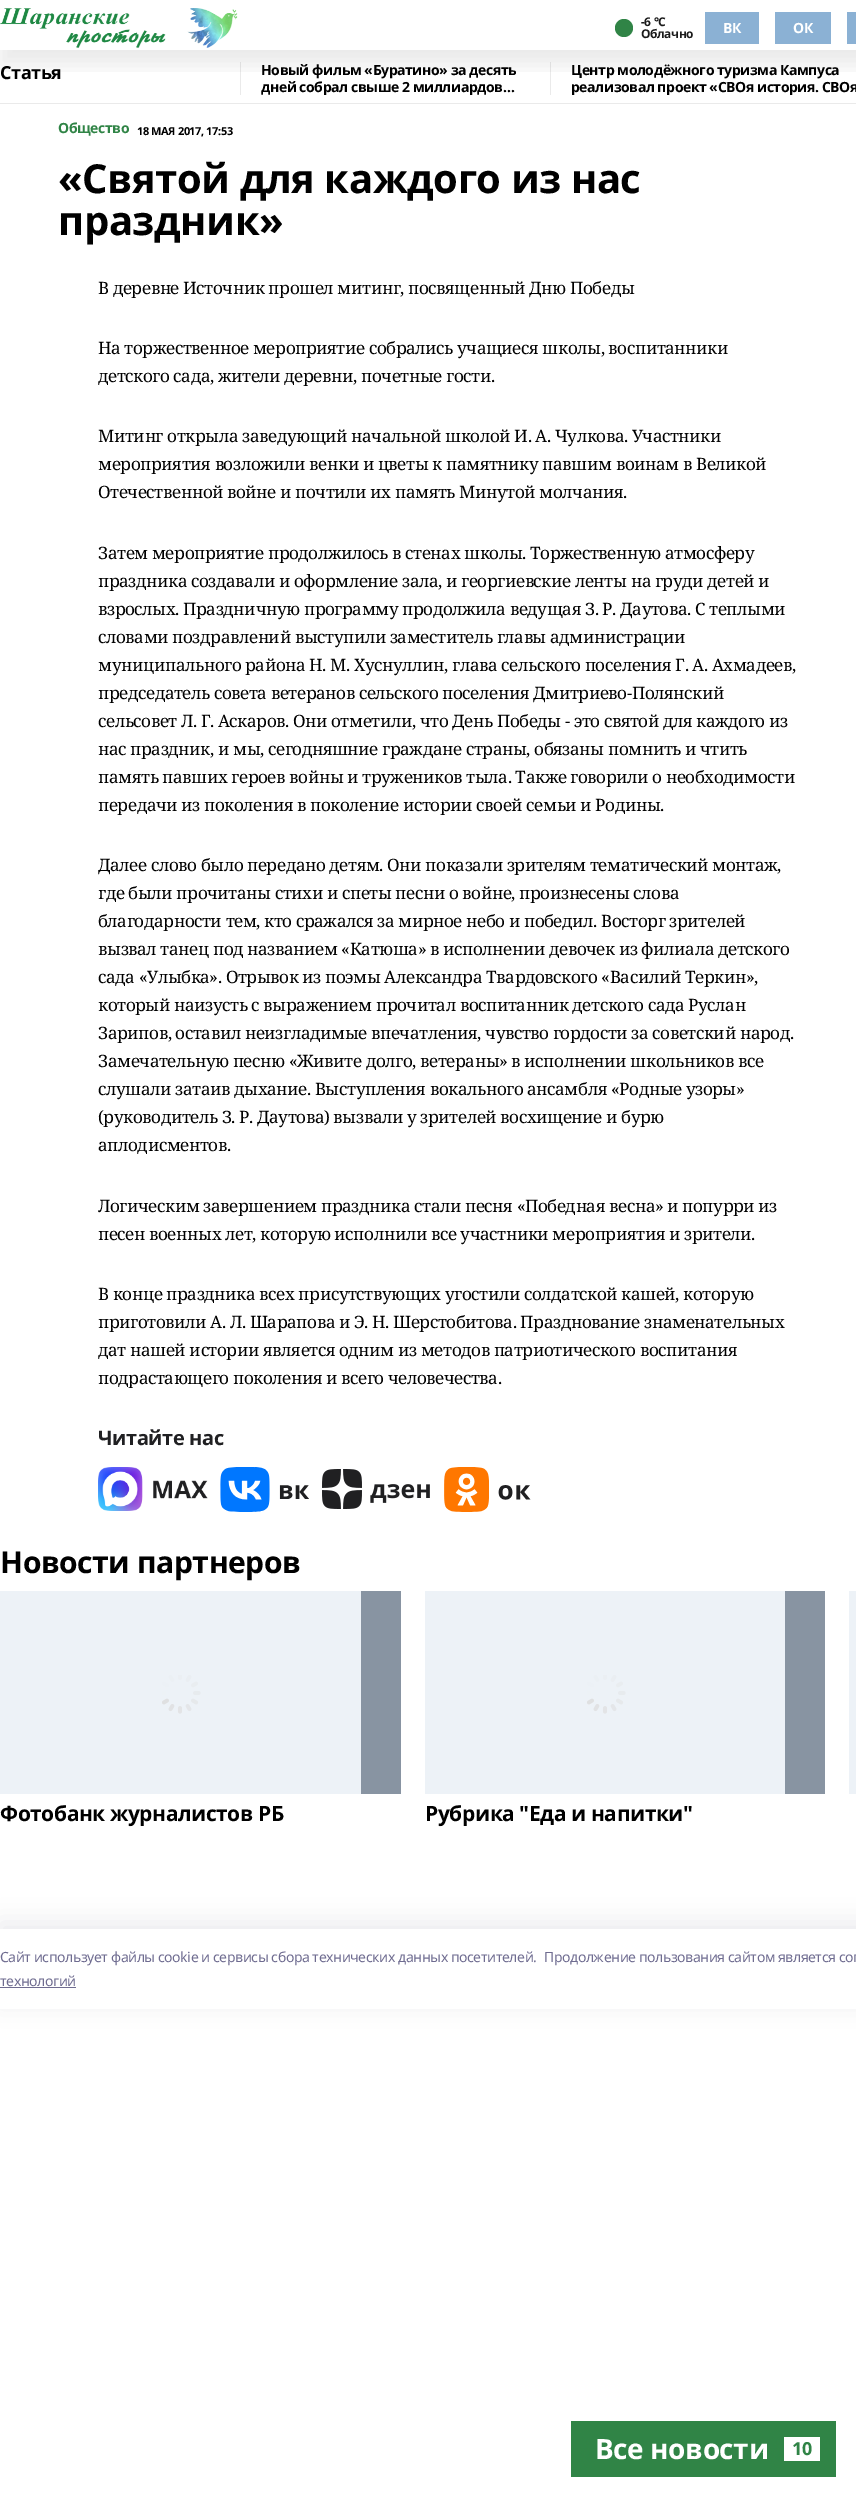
%!PS-Adobe-3.0
%%BoundingBox: 0 0 856 2497
%%LanguageLevel: 3
%%Pages: 1
%%EndComments
%%BeginProlog
/setink { dup -16 bitshift 255 div exch dup -8 bitshift 255 and 255 div exch 255 and 255 div setrgbcolor } def
/usefont { [ exch dup neg 0 0 3 -1 roll 0 0 ] selectfont } def
/setalpha { dup .setfillconstantalpha .setstrokeconstantalpha } def
/disc { newpath 0 360 arc closepath } def
/rrect { 5 dict begin { /r /h /w /y /x } { exch def } forall
  x r add y moveto x w add y 2 copy h add r arct x w add y h add x 1 index r arct
  x y h add x y r arct x y 2 copy exch w add exch r arct closepath end } def
/softshadow { 12 dict begin { /a /b /q /h /w /y /x } { exch def } forall gsave /was 0 def
  9 -2 -9 { dup b mul 4 div /e exch def 1 sub .425 mul 2.718 exch exp 1 add a .99 .min exch div /now exch def
    1 1 now sub 1 was sub div sub setalpha /was now def
    w h .min e 2 mul add 0 gt { x e sub y e sub w e 2 mul add h e 2 mul add
      q e add b .6 mul add w h .min 2 div e add .min 0 .max rrect fill } if } for grestore end } def
/drawimage { 5 dict begin { /h /w /y /x /name } { exch def } forall
  gsave x y translate w h scale
  w h 8 [w 0 0 h 0 0] name (r) file false 3 colorimage grestore end } def
%%EndProlog
%%BeginSetup
<< /PageSize [856 2497] /PageUsesTransparency true >> setpagedevice
%%EndSetup
%%Page: 1 1
0 .pushpdf14devicefilter
0 2497 translate 1 -1 scale
4 setmiterlimit
16#FFFFFF setink
0 0 856 2497 rectfill
16#EAEAEA setink
240 62 1 33 rectfill
550 62 1 33 rectfill
gsave
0 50 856 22 rectclip
16#000000 setink
0 15 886 50 0 10 0.08 softshadow
grestore
(img1.raw) 0 8 238 40 drawimage
16#308446 setink
624 28 9 disc fill
/NotoSans-Bold 12 usefont
16#1A1A1A setink
641 26 moveto -0.42 0 (-6 °С) ashow
641 38 moveto -0.42 0 (Облачно) ashow
16#8BB1D4 setink
705 12 54 32 rectfill
/NotoSans-Bold 14 usefont
16#FFFFFF setink
723 33 moveto -0.42 0 (ВК) ashow
16#8BB1D4 setink
775 12 56 32 rectfill
16#FFFFFF setink
793 33 moveto -0.42 0 (ОК) ashow
16#8BB1D4 setink
847 12 9 32 rectfill
16#EAEAEA setink
0 103 856 1 rectfill
/NotoSans-Bold 18 usefont
16#000000 setink
0 79 moveto -0.42 0 (Статья) ashow
/NotoSans-Bold 14 usefont
261 75 moveto -0.42 0 (Новый фильм «Буратино» за десять) ashow
gsave
241 62 309 33 rectclip
261 92 moveto -0.42 0 (дней собрал свыше 2 миллиардов…) ashow
grestore
571 75 moveto -0.42 0 (Центр молодёжного туризма Кампуса) ashow
gsave
551 62 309 33 rectclip
571 92 moveto -0.42 0 (реализовал проект «СВОя история. СВОя) ashow
grestore
16#308446 setink
58 133 moveto -0.42 0 (Общество) ashow
/NotoSans-Bold 11 usefont
16#000000 setink
137 135 moveto -0.42 0 (18 МАЯ 2017, 17:53) ashow
/NotoSans-Bold 40 usefont
58 193 moveto -0.42 0 («Святой для каждого из нас) ashow
58 235 moveto -0.42 0 (праздник») ashow
/NotoSerif-Regular 17 usefont
98 294 moveto -0.42 0 (В деревне Источник прошел митинг, посвященный Дню Победы) ashow
98 354 moveto -0.42 0 (На торжественное мероприятие собрались учащиеся школы, воспитанники) ashow
98 382 moveto -0.42 0 (детского сада, жители деревни, почетные гости.) ashow
98 442 moveto -0.42 0 (Митинг открыла заведующий начальной школой И. А. Чулкова. Участники) ashow
98 470 moveto -0.42 0 (мероприятия возложили венки и цветы к памятнику павшим воинам в Великой) ashow
98 498 moveto -0.42 0 (Отечественной войне и почтили их память Минутой молчания.) ashow
98 559 moveto -0.42 0 (Затем мероприятие продолжилось в стенах школы. Торжественную атмосферу) ashow
98 587 moveto -0.42 0 (праздника создавали и оформление зала, и георгиевские ленты на груди детей и) ashow
98 615 moveto -0.42 0 (взрослых. Праздничную программу продолжила ведущая З. Р. Даутова. С теплыми) ashow
98 643 moveto -0.42 0 (словами поздравлений выступили заместитель главы администрации) ashow
98 671 moveto -0.42 0 (муниципального района Н. М. Хуснуллин, глава сельского поселения Г. А. Ахмадеев,) ashow
98 699 moveto -0.42 0 (председатель совета ветеранов сельского поселения Дмитриево-Полянский) ashow
98 727 moveto -0.42 0 (сельсовет Л. Г. Аскаров. Они отметили, что День Победы - это святой для каждого из) ashow
98 755 moveto -0.42 0 (нас праздник, и мы, сегодняшние граждане страны, обязаны помнить и чтить) ashow
98 783 moveto -0.42 0 (память павших героев войны и тружеников тыла. Также говорили о необходимости) ashow
98 811 moveto -0.42 0 (передачи из поколения в поколение истории своей семьи и Родины.) ashow
98 871 moveto -0.42 0 (Далее слово было передано детям. Они показали зрителям тематический монтаж,) ashow
98 899 moveto -0.42 0 (где были прочитаны стихи и спеты песни о войне, произнесены слова) ashow
98 927 moveto -0.42 0 (благодарности тем, кто сражался за мирное небо и победил. Восторг зрителей) ashow
98 955 moveto -0.42 0 (вызвал танец под названием «Катюша» в исполнении девочек из филиала детского) ashow
98 983 moveto -0.42 0 (сада «Улыбка». Отрывок из поэмы Александра Твардовского «Василий Теркин»,) ashow
98 1011 moveto -0.42 0 (который наизусть с выражением прочитал воспитанник детского сада Руслан) ashow
98 1039 moveto -0.42 0 (Зарипов, оставил неизгладимые впечатления, чувство гордости за советский народ.) ashow
98 1067 moveto -0.42 0 (Замечательную песню «Живите долго, ветераны» в исполнении школьников все) ashow
98 1095 moveto -0.42 0 (слушали затаив дыхание. Выступления вокального ансамбля «Родные узоры») ashow
98 1123 moveto -0.42 0 (\(руководитель З. Р. Даутова\) вызвали у зрителей восхищение и бурю) ashow
98 1151 moveto -0.42 0 (аплодисментов.) ashow
98 1212 moveto -0.42 0 (Логическим завершением праздника стали песня «Победная весна» и попурри из) ashow
98 1240 moveto -0.42 0 (песен военных лет, которую исполнили все участники мероприятия и зрители.) ashow
98 1300 moveto -0.42 0 (В конце праздника всех присутствующих угостили солдатской кашей, которую) ashow
98 1328 moveto -0.42 0 (приготовили А. Л. Шарапова и Э. Н. Шерстобитова. Празднование знаменательных) ashow
98 1356 moveto -0.42 0 (дат нашей истории является одним из методов патриотического воспитания) ashow
98 1384 moveto -0.42 0 (подрастающего поколения и всего человечества.) ashow
/NotoSans-Bold 20 usefont
16#202022 setink
98 1445 moveto -0.42 0 (Читайте нас) ashow
(img2.raw) 98 1467 110 44 drawimage
(img3.raw) 220 1467 89 45 drawimage
(img4.raw) 322 1469 108 40 drawimage
(img5.raw) 444 1467 87 45 drawimage
/NotoSans-Bold 30 usefont
16#000000 setink
0 1573 moveto -0.42 0 (Новости партнеров) ashow
[
    [849 1591 7 203 16#EDF2F7]
    [361 1591 40 203 16#8894A2]
    [0 1591 361 203 16#EDF2F7]
] { aload pop setink rectfill } forall
(img6.raw) 162 1675 39 39 drawimage
/NotoSans-Bold 21 usefont
16#000000 setink
0 1821 moveto -0.42 0 (Фотобанк журналистов РБ) ashow
16#8894A2 setink
785 1591 40 203 rectfill
16#EDF2F7 setink
425 1591 360 203 rectfill
(img6.raw) 587 1675 39 39 drawimage
16#000000 setink
425 1821 moveto -0.42 0 (Рубрика "Еда и напитки") ashow
16#308446 setink
571 2421 265 56 rectfill
/NotoSans-Bold 28 usefont
16#FFFFFF setink
595 2459 moveto -0.42 0 (Все новости) ashow
784 2437 36 24 rectfill
/NotoSans-Bold 18 usefont
16#308446 setink
792 2455 moveto -0.42 0 (10) ashow
gsave
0 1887 moveto 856 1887 lineto 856 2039 lineto 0 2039 lineto closepath 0 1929 moveto 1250 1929 lineto 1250 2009 lineto 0 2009 lineto closepath eoclip newpath
16#14142B setink
0 1923 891 80 0 11.5 0.08 softshadow
grestore
/NotoSans-Regular 14 usefont
16#6F6C90 setink
0 1962 moveto -0.42 0 (Cайт использует файлы cookie и сервисы сбора технических данных посетителей.) ashow
544 1962 moveto -0.42 0 (Продолжение пользования сайтом является сог) ashow
0 1986 moveto -0.42 0 (технологий) ashow
0 1987 76 1 rectfill
.poppdf14devicefilter showpage
%%EOF
